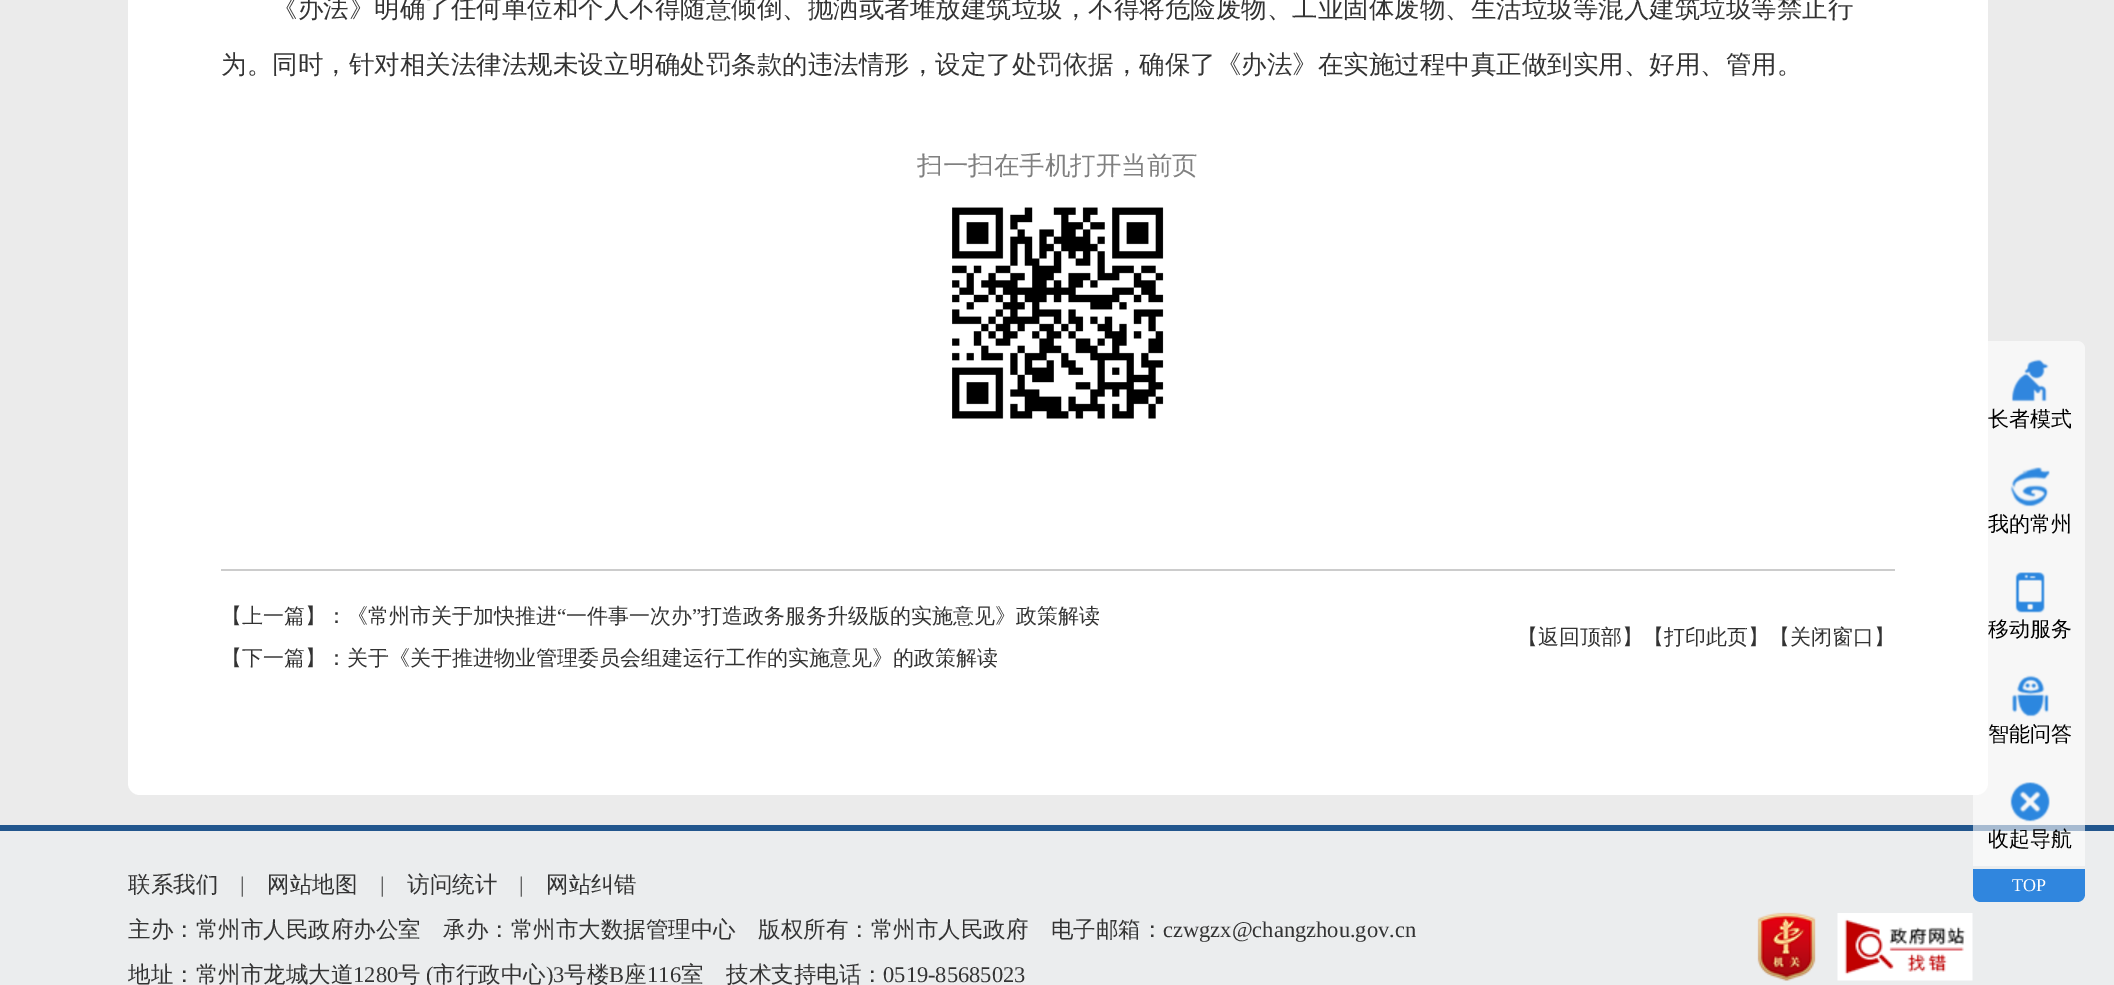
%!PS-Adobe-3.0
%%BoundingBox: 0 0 2114 985
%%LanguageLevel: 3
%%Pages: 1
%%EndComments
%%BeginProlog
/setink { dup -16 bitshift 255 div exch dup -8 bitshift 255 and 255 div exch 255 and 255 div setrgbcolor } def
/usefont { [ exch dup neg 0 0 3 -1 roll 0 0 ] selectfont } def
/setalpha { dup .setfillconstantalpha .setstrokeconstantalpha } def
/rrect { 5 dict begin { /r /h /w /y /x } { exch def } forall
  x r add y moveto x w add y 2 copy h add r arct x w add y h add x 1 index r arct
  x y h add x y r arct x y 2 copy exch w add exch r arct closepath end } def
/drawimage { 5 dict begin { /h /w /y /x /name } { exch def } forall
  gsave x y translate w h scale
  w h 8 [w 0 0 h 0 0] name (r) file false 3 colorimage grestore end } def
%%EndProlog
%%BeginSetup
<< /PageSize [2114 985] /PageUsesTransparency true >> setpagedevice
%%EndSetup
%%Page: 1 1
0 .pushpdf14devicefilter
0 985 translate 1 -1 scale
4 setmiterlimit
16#EBEBEB setink
0 0 2114 985 rectfill
16#FFFFFF setink
128 -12 1860 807 12 rrect fill
/WenQuanYiZenHei-Medium 25.5 usefont
16#333333 setink
272 17 moveto (《办法》明确了任何单位和个人不得随意倾倒、抛洒或者堆放建筑垃圾，不得将危险废物、工业固体废物、生活垃圾等混入建筑垃圾等禁止行) show
221 73 moveto (为。同时，针对相关法律法规未设立明确处罚条款的违法情形，设定了处罚依据，确保了《办法》在实施过程中真正做到实用、好用、管用。) show
16#808080 setink
917 174 moveto (扫一扫在手机打开当前页) show
(img1.raw) 952 207 212 212 drawimage
16#CCCCCC setink
221 569 1674 2 rectfill
/WenQuanYiZenHei-Medium 21 usefont
16#333333 setink
221 623 moveto (【上一篇】：《常州市关于加快推进) show
/LiberationSerif-Regular 21 usefont
557 623 moveto (“) show
/WenQuanYiZenHei-Medium 21 usefont
566 623 moveto (一件事一次办) show
/LiberationSerif-Regular 21 usefont
692 623 moveto (”) show
/WenQuanYiZenHei-Medium 21 usefont
[
    [(打造政务服务升级版的实施意见》政策解读) 701 623]
    [(【下一篇】：关于《关于推进物业管理委员会组建运行工作的实施意见》的政策解读) 221 665]
    [(【返回顶部】【打印此页】【关闭窗口】) 1517 644]
] { aload pop moveto show } forall
16#EBEDEE setink
0 831 2114 154 rectfill
16#22568D setink
0 825 2114 6 rectfill
0.6 setalpha
16#FFFFFF setink
1981 341 moveto 2077 341 lineto 2081.5 341 2085 344.5 2085 349 curveto 2085 866 lineto 1973 866 lineto 1973 349 lineto 1973 344.5 1976.5 341 1981 341 curveto closepath fill
1 setalpha
(img2.raw) 2011 359 38 43 drawimage
16#000000 setink
1988 426 moveto (长者模式) show
(img3.raw) 2010 467 40 40 drawimage
1988 531 moveto (我的常州) show
(img4.raw) 2015 572 30 41 drawimage
1988 636 moveto (移动服务) show
(img5.raw) 2011 675 38 42 drawimage
1988 741 moveto (智能问答) show
(img6.raw) 2010 782 40 40 drawimage
1988 846 moveto (收起导航) show
16#3086DE setink
1973 869 moveto 2085 869 lineto 2085 894 lineto 2085 898.5 2081.5 902 2077 902 curveto 1981 902 lineto 1976.5 902 1973 898.5 1973 894 curveto closepath fill
/LiberationSerif-Regular 18 usefont
16#FFFFFF setink
2012 891 moveto (TOP) show
gsave
128 831 1860 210 rectclip
/WenQuanYiZenHei-Medium 22.5 usefont
16#333333 setink
128 892 moveto (联系我们) show
grestore
/LiberationSerif-Regular 22.5 usefont
16#333333 setink
240 892 moveto (|) show
/WenQuanYiZenHei-Medium 22.5 usefont
267 892 moveto (网站地图) show
/LiberationSerif-Regular 22.5 usefont
380 892 moveto (|) show
/WenQuanYiZenHei-Medium 22.5 usefont
407 892 moveto (访问统计) show
/LiberationSerif-Regular 22.5 usefont
519 892 moveto (|) show
/WenQuanYiZenHei-Medium 22.5 usefont
546 892 moveto (网站纠错) show
128 937 moveto (主办：常州市人民政府办公室　承办：常州市大数据管理中心　版权所有：常州市人民政府　电子邮箱：) show
/LiberationSerif-Regular 22.5 usefont
1163 937 moveto (czwgzx@changzhou.gov.cn) show
gsave
128 831 1860 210 rectclip
/WenQuanYiZenHei-Medium 22.5 usefont
128 982 moveto (地址：常州市龙城大道) show
grestore
353 982 moveto (1280) show
/WenQuanYiZenHei-Medium 22.5 usefont
398 982 moveto (号) show
/LiberationSerif-Regular 22.5 usefont
426 982 moveto (\() show
/WenQuanYiZenHei-Medium 22.5 usefont
433 982 moveto (市行政中心) show
/LiberationSerif-Regular 22.5 usefont
546 982 moveto (\)3) show
/WenQuanYiZenHei-Medium 22.5 usefont
564 982 moveto (号楼) show
/LiberationSerif-Regular 22.5 usefont
609 982 moveto (B) show
/WenQuanYiZenHei-Medium 22.5 usefont
624 982 moveto (座) show
/LiberationSerif-Regular 22.5 usefont
647 982 moveto (116) show
/WenQuanYiZenHei-Medium 22.5 usefont
681 982 moveto (室　技术支持电话：) show
/LiberationSerif-Regular 22.5 usefont
883 982 moveto (0519-85685023) show
(img7.raw) 1757 912 59 69 drawimage
(img8.raw) 1837 913 136 68 drawimage
.poppdf14devicefilter showpage
%%EOF
